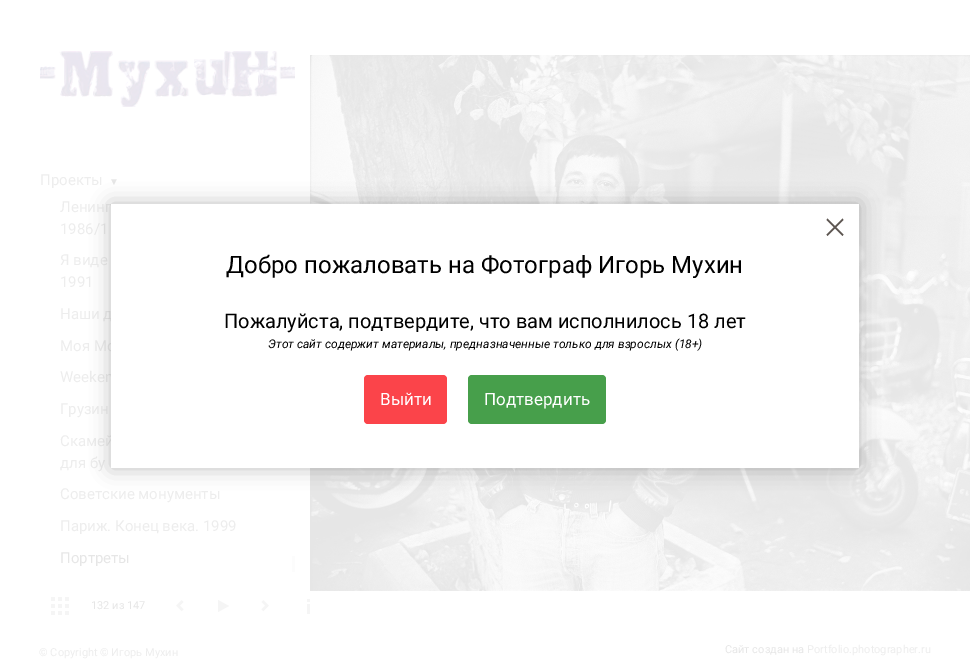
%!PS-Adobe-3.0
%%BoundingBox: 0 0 970 672
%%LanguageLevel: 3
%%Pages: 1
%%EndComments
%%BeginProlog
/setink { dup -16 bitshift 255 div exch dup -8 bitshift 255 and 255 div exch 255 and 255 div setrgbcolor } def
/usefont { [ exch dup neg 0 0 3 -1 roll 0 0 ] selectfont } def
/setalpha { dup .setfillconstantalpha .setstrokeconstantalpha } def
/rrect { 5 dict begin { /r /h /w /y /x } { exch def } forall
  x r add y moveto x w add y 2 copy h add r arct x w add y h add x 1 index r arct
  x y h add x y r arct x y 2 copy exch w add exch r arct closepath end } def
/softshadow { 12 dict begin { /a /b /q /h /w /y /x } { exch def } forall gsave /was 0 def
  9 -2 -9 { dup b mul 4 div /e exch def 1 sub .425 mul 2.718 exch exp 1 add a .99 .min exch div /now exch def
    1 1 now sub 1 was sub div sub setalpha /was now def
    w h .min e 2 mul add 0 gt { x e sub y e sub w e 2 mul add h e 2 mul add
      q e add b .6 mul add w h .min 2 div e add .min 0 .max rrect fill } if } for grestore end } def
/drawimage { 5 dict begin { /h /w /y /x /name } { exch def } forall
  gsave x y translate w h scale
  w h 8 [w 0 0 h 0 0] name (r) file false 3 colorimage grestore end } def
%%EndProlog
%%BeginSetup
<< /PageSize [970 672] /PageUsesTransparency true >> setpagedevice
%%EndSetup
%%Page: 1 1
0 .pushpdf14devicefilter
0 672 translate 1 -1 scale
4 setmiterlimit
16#FFFFFF setink
0 0 970 672 rectfill
(img1.raw) 40 51 255 56 drawimage
/Roboto-Regular 15 usefont
16#EDEDED setink
40 185 moveto (Проекты) show
/LiberationSerif-Regular 10 usefont
16#E6E6E6 setink
109 185 moveto (▼) show
/Roboto-Regular 15 usefont
16#EDEDED setink
[
    [(Ленинг) 60 212]
    [(1986/1) 60 234]
    [(Я виде) 60 265]
    [(1991) 60 287]
    [(Наши д) 60 319]
    [(Моя Мo) 60 351]
    [(Weeken) 60 382]
    [(Грузин) 60 414]
    [(Скамей) 60 446]
    [(для бу) 60 468]
    [(Советские монументы) 60 499]
    [(Париж. Конец века. 1999) 60 531]
] { aload pop moveto show } forall
16#E6E6E6 setink
60 563 moveto (Пoртреты) show
16#FCFCFC setink
292 556 3 16 rectfill
(img2.raw) 51 597 18 18 drawimage
/Roboto-Regular 11 usefont
16#E6E6E6 setink
91 609 moveto (132 из 147) show
(img3.raw) 176 600 8 12 drawimage
16#F5F5F5 setink
229 606 moveto 218 612 lineto 218 600 lineto closepath fill
(img4.raw) 261 600 8 12 drawimage
(img5.raw) 307 599 3 15 drawimage
(img6.raw) 310 55 660 536 drawimage
16#000000 setink
111 204 748 264 0 10 0.25 softshadow
16#FFFFFF setink
111 204 748 264 rectfill
16#5D5651 setink
842.5 218.5 moveto 843.5 220 lineto 827.5 236 lineto 826.5 234.5 lineto closepath fill
826.5 220 moveto 827.5 218.5 lineto 843.5 234.5 lineto 842.5 236 lineto closepath fill
/Roboto-Regular 24 usefont
16#000000 setink
226 273 moveto (Добро пожаловать на Фотограф Игорь Мухин) show
/Roboto-Regular 20 usefont
224 328 moveto (Пожалуйста, подтвердите, что вам исполнилось 18 лет) show
/Roboto-Italic 12 usefont
268 348 moveto (Этот сайт содержит материалы, предназначенные только для взрослых \(18+\)) show
16#FB444A setink
364 375 83 49 4 rrect fill
/Roboto-Regular 17 usefont
16#FFFFFF setink
380 405 moveto (Выйти) show
16#479F4B setink
468 375 138 49 4 rrect fill
16#FFFFFF setink
484 405 moveto (Подтвердить) show
/Roboto-Regular 11 usefont
16#EDEDED setink
39 656 moveto (© Copyright © Игорь Мухин) show
16#E6E6E6 setink
725 653 moveto (Сайт создан на) show
16#EDEDED setink
807 653 moveto (Portfolio.photographer.ru) show
.poppdf14devicefilter showpage
%%EOF
